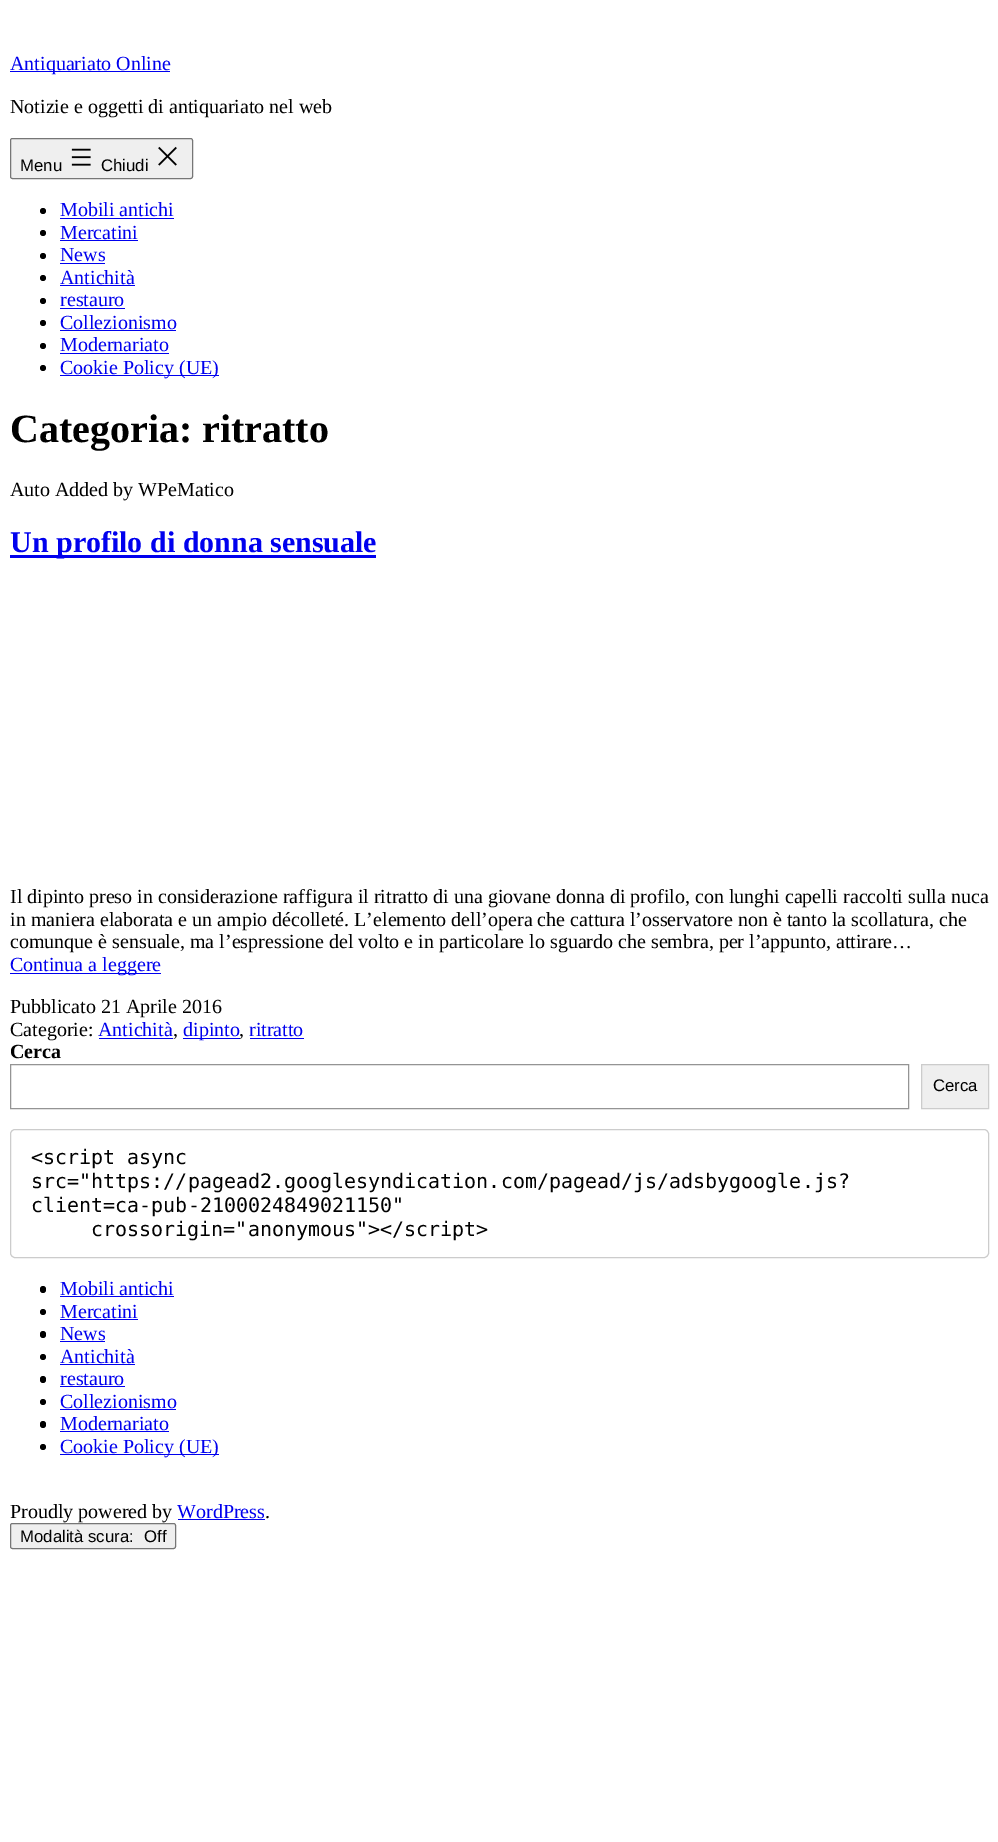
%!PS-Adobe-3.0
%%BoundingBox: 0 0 998 1842
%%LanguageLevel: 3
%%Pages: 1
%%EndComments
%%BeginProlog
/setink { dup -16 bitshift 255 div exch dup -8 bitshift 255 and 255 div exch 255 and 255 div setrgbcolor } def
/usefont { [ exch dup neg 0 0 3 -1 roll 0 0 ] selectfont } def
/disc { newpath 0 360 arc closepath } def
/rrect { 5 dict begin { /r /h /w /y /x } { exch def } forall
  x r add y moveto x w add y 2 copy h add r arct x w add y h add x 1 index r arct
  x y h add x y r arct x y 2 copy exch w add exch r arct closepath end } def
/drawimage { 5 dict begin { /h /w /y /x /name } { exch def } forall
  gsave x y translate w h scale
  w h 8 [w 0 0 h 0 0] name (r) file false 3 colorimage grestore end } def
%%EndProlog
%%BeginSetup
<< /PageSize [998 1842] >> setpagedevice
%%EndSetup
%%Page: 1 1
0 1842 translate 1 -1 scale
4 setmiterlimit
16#FFFFFF setink
0 0 998 1842 rectfill
16#0000EE setink
10 71 160 1 rectfill
/LiberationSerif-Regular 20 usefont
10 70 moveto (Antiquariato Online) show
16#000000 setink
10 113 moveto (Notizie e oggetti di antiquariato nel web) show
16#EFEFEF setink
10.5 138.5 182 40 2 rrect gsave fill grestore
16#767676 setink
stroke
/LiberationSans-Regular 16.75 usefont
16#000000 setink
20 171 moveto (Menu) show
(img1.raw) 71 148 20 18 drawimage
101 171 moveto (Chiudi) show
(img2.raw) 158 146 19 20 drawimage
43 211 3 disc fill
/LiberationSerif-Regular 20 usefont
16#0000EE setink
60 216 moveto (Mobili antichi) show
60 218 114 1 rectfill
16#000000 setink
43 233 3 disc fill
16#0000EE setink
60 239 moveto (Mercatini) show
60 240 78 1 rectfill
16#000000 setink
43 256 3 disc fill
16#0000EE setink
60 261 moveto (News) show
60 263 45 1 rectfill
16#000000 setink
43 278 3 disc fill
16#0000EE setink
60 284 moveto (Antichità) show
60 285 75 1 rectfill
16#000000 setink
43 301 3 disc fill
16#0000EE setink
60 306 moveto (restauro) show
60 308 65 1 rectfill
16#000000 setink
43 323 3 disc fill
16#0000EE setink
60 329 moveto (Collezionismo) show
60 330 116 1 rectfill
16#000000 setink
43 346 3 disc fill
16#0000EE setink
60 351 moveto (Modernariato) show
60 353 109 1 rectfill
16#000000 setink
43 368 3 disc fill
16#0000EE setink
60 375 159 1 rectfill
60 374 moveto (Cookie Policy \(UE\)) show
/LiberationSerif-Bold 40 usefont
16#000000 setink
10 442 moveto (Categoria: ritratto) show
/LiberationSerif-Regular 20 usefont
10 496 moveto (Auto Added by WPeMatico) show
16#0000EE setink
10 555 366 3 rectfill
/LiberationSerif-Bold 30 usefont
10 552 moveto (Un profilo di donna sensuale) show
/LiberationSerif-Regular 20 usefont
16#000000 setink
[
    [(Il dipinto preso in considerazione raffigura il ritratto di una giovane donna di profilo, con lunghi capelli raccolti sulla nuca) 10 903]
    [(in maniera elaborata e un ampio décolleté. L’elemento dell’opera che cattura l’osservatore non è tanto la scollatura, che) 10 926]
    [(comunque è sensuale, ma l’espressione del volto e in particolare lo sguardo che sembra, per l’appunto, attirare…) 10 948]
] { aload pop moveto show } forall
16#0000EE setink
10 973 151 1 rectfill
10 971 moveto (Continua a leggere) show
16#000000 setink
10 1013 moveto (Pubblicato 21 Aprile 2016) show
10 1036 moveto (Categorie:) show
16#0000EE setink
98 1036 moveto (Antichità) show
16#000000 setink
173 1036 moveto (,) show
16#0000EE setink
99 1038 74 1 rectfill
183 1038 57 1 rectfill
183 1036 moveto (dipinto) show
16#000000 setink
239 1036 moveto (,) show
16#0000EE setink
250 1038 54 1 rectfill
249 1036 moveto (ritratto) show
/LiberationSerif-Bold 20 usefont
16#000000 setink
10 1058 moveto (Cerca) show
16#949494 setink
10.5 1064.5 898 44 rectstroke
16#EFEFEF setink
921.5 1064.5 moveto 988.5 1064.5 lineto 988.5 1108.5 lineto 921.5 1108.5 lineto closepath gsave fill grestore
16#CCCCCC setink
stroke
/LiberationSans-Regular 16.75 usefont
16#000000 setink
933 1091 moveto (Cerca) show
16#CCCCCC setink
10.5 1129.5 978 128 4.5 rrect stroke
/DejaVuSansMono-Regular 20 usefont
16#000000 setink
[
    [(<script async) 31 1164]
    [(src="https://pagead2.googlesyndication.com/pagead/js/adsbygoogle.js?) 31 1188]
    [(client=ca-pub-2100024849021150") 31 1212]
    [(crossorigin="anonymous"></script>) 91 1236]
] { aload pop moveto show } forall
40 1286 6 7 3 rrect fill
/LiberationSerif-Regular 20 usefont
16#0000EE setink
60 1295 moveto (Mobili antichi) show
60 1296 114 1 rectfill
16#000000 setink
43 1312 3 disc fill
16#0000EE setink
60 1318 moveto (Mercatini) show
60 1319 78 1 rectfill
16#000000 setink
40 1331 6 7 3 rrect fill
16#0000EE setink
60 1340 moveto (News) show
60 1341 45 1 rectfill
16#000000 setink
43 1357 3 disc fill
16#0000EE setink
60 1363 moveto (Antichità) show
60 1364 75 1 rectfill
16#000000 setink
40 1376 6 7 3 rrect fill
16#0000EE setink
60 1385 moveto (restauro) show
60 1386 65 1 rectfill
16#000000 setink
43 1402 3 disc fill
16#0000EE setink
60 1408 moveto (Collezionismo) show
60 1409 116 1 rectfill
16#000000 setink
40 1421 6 7 3 rrect fill
16#0000EE setink
60 1430 moveto (Modernariato) show
60 1431 109 1 rectfill
16#000000 setink
43 1447 3 disc fill
16#0000EE setink
60 1454 159 1 rectfill
60 1453 moveto (Cookie Policy \(UE\)) show
16#000000 setink
10 1518 moveto (Proudly powered by) show
16#0000EE setink
177 1518 moveto (WordPress) show
178 1519 87 1 rectfill
16#000000 setink
265 1518 moveto (.) show
16#EFEFEF setink
10.5 1523.5 165 25 2 rrect gsave fill grestore
16#767676 setink
stroke
/LiberationSans-Regular 16.75 usefont
16#000000 setink
20 1542 moveto (Modalità scura:) show
144 1542 moveto (Off) show
showpage
%%EOF
